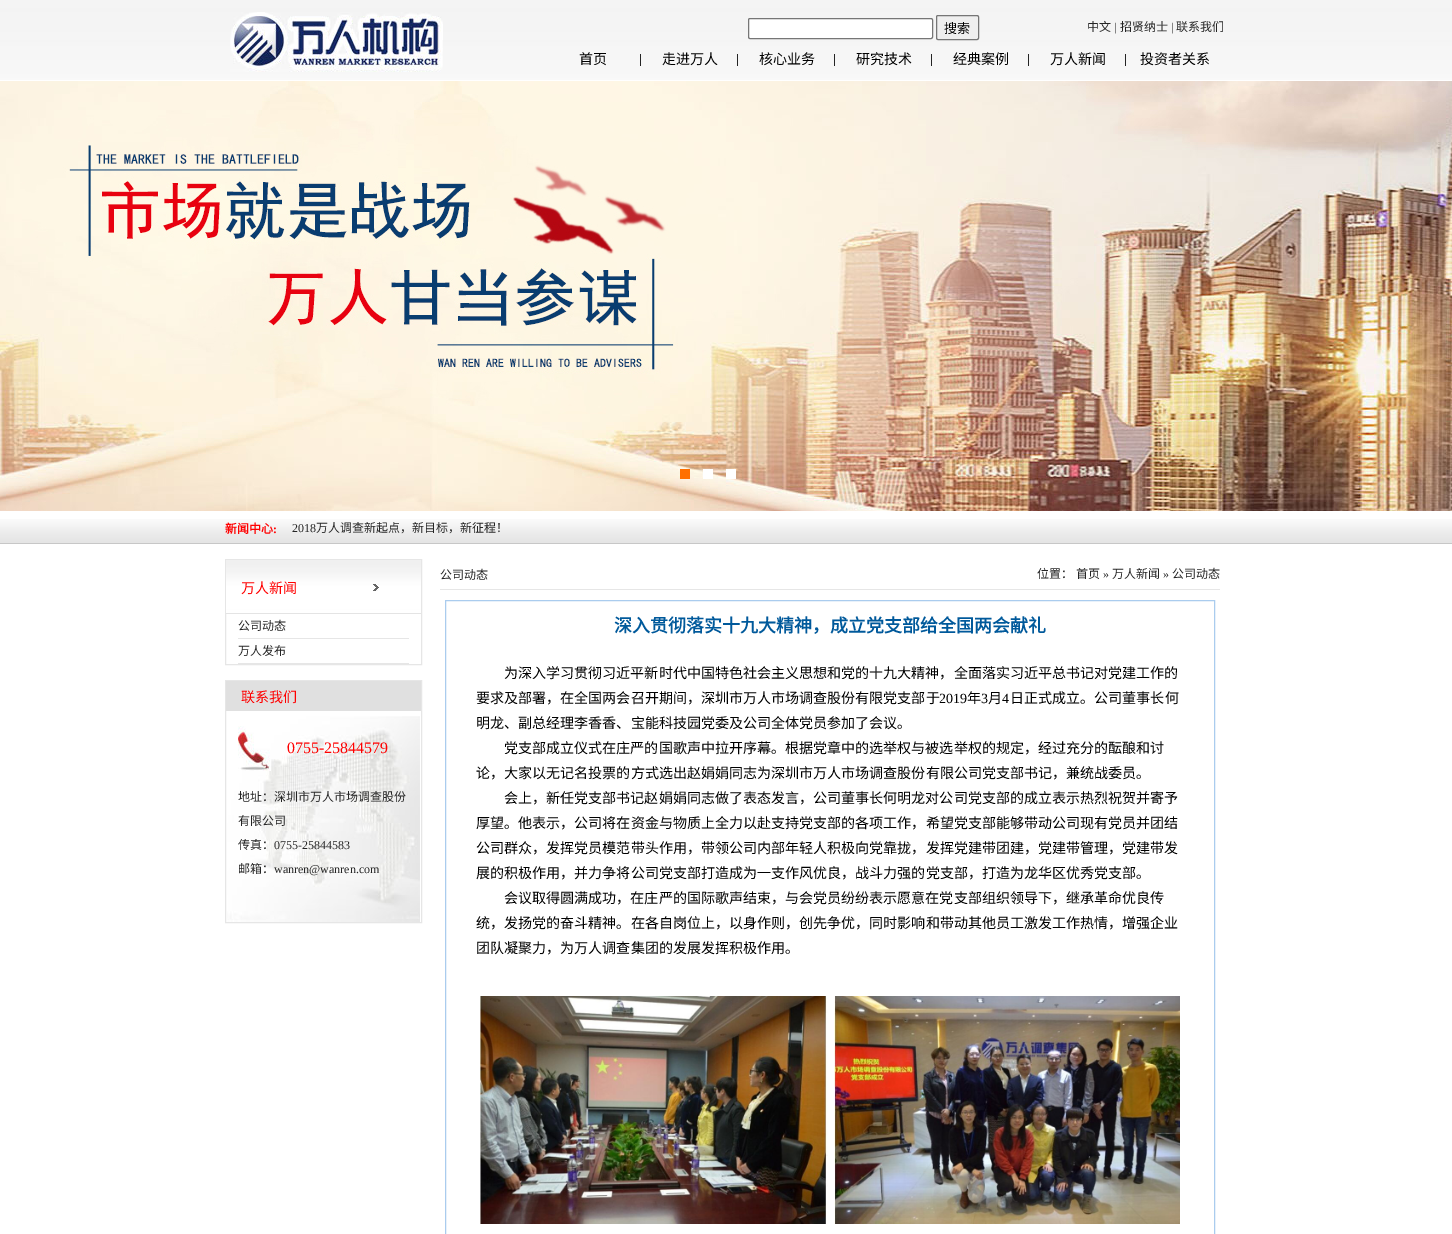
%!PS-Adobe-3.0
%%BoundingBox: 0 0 1452 1234
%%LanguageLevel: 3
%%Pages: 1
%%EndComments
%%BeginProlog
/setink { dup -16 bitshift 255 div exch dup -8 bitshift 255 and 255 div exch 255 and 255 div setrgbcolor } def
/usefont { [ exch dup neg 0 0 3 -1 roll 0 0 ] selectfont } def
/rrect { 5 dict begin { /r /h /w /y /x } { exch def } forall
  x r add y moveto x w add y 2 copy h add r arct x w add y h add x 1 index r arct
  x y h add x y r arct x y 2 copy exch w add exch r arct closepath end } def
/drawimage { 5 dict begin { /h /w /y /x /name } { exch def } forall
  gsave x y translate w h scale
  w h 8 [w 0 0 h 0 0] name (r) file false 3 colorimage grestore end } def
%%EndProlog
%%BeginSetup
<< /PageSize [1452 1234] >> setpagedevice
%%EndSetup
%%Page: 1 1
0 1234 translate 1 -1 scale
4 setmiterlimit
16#FFFFFF setink
0 0 1452 1234 rectfill
(img1.raw) 0 0 1452 80 drawimage
(img2.raw) 230 12 213 60 drawimage
748.5 18.5 184 20 1.5 rrect gsave fill grestore
16#767676 setink
stroke
16#EFEFEF setink
936.5 15.5 42 24 1.5 rrect gsave fill grestore
16#767676 setink
stroke
/NotoSansCJKSC-Regular 13 usefont
16#000000 setink
944 33 moveto (搜索) show
/NotoSansCJKSC-Regular 12 usefont
16#252525 setink
1087 31 moveto (中文) show
/LiberationSerif-Regular 12 usefont
1114 31 moveto (|) show
/NotoSansCJKSC-Regular 12 usefont
1120 31 moveto (招贤纳士) show
/LiberationSerif-Regular 12 usefont
1171 31 moveto (|) show
/NotoSansCJKSC-Regular 12 usefont
1176 31 moveto (联系我们) show
640 54 1 12 rectfill
/NotoSansCJKSC-Regular 14 usefont
16#000000 setink
579 64 moveto (首页) show
16#252525 setink
737 54 1 12 rectfill
16#000000 setink
662 64 moveto (走进万人) show
16#252525 setink
834 54 1 12 rectfill
16#000000 setink
759 64 moveto (核心业务) show
16#252525 setink
931 54 1 12 rectfill
16#000000 setink
856 64 moveto (研究技术) show
16#252525 setink
1028 54 1 12 rectfill
16#000000 setink
953 64 moveto (经典案例) show
16#252525 setink
1125 54 1 12 rectfill
16#000000 setink
1050 64 moveto (万人新闻) show
1140 64 moveto (投资者关系) show
(img3.raw) 0 81 1452 430 drawimage
[
    [680 469 10 10 16#FF7000]
    [703 469 10 10 16#FFFFFF]
    [726 469 10 10 16#FFFFFF]
] { aload pop setink rectfill } forall
(img4.raw) 0 519 1452 25 drawimage
/NotoSansCJKSC-Bold 12 usefont
16#FF0000 setink
225 533 moveto (新闻中心) show
/LiberationSerif-Bold 12 usefont
273 533 moveto (:) show
/LiberationSerif-Regular 12 usefont
16#252525 setink
292 532 moveto (2018) show
/NotoSansCJKSC-Regular 12 usefont
316 532 moveto (万人调查新起点，新目标，新征程！) show
16#E6E6E6 setink
225.5 559.5 196 105 rectstroke
(img5.raw) 226 560 147 54 drawimage
/NotoSansCJKSC-Regular 14 usefont
16#FF0000 setink
241 593 moveto (万人新闻) show
(img6.raw) 373 560 48 54 drawimage
(img7.raw) 373 584 6 7 drawimage
16#E6E6E6 setink
238 638 171 1 rectfill
/NotoSansCJKSC-Regular 12 usefont
16#252525 setink
238 630 moveto (公司动态) show
16#E6E6E6 setink
238 663 171 1 rectfill
16#252525 setink
238 655 moveto (万人发布) show
16#E6E6E6 setink
225.5 680.5 196 242 rectstroke
16#E0E0E0 setink
226 681 195 30 rectfill
/NotoSansCJKSC-Regular 14 usefont
16#FF0000 setink
241 702 moveto (联系我们) show
(img8.raw) 227 716 193 206 drawimage
(img9.raw) 238 726 33 45 drawimage
/LiberationSerif-Regular 16 usefont
287 753 moveto (0755-25844579) show
/NotoSansCJKSC-Regular 12 usefont
16#252525 setink
[
    [(地址：深圳市万人市场调查股份) 238 801]
    [(有限公司) 238 825]
    [(传真：) 238 849]
] { aload pop moveto show } forall
/LiberationSerif-Regular 12 usefont
274 849 moveto (0755-25844583) show
/NotoSansCJKSC-Regular 12 usefont
238 873 moveto (邮箱：) show
/LiberationSerif-Regular 12 usefont
274 873 moveto (wanren@wanren.com) show
16#E6E6E6 setink
440 589 780 1 rectfill
/NotoSansCJKSC-Regular 12 usefont
16#252525 setink
[
    [(公司动态) 440 579]
    [(位置：) 1037 578]
    [(首页) 1076 578]
] { aload pop moveto show } forall
/LiberationSerif-Regular 12 usefont
1103 578 moveto (») show
/NotoSansCJKSC-Regular 12 usefont
1112 578 moveto (万人新闻) show
/LiberationSerif-Regular 12 usefont
1163 578 moveto (») show
/NotoSansCJKSC-Regular 12 usefont
1172 578 moveto (公司动态) show
16#AACCEE setink
445.5 600.5 769 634 rectstroke
/NotoSansCJKSC-Bold 18 usefont
16#00599B setink
614 632 moveto (深入贯彻落实十九大精神，成立党支部给全国两会献礼) show
/NotoSansCJKSC-Regular 14.05 usefont
16#000000 setink
504 678 moveto (为深入学习贯彻习近平新时代中国特色社会主义思想和党的十九大精神，全面落实习近平总书记对党建工作的) show
476 703 moveto (要求及部署，在全国两会召开期间，深圳市万人市场调查股份有限党支部于) show
/LiberationSerif-Regular 14.05 usefont
939 703 moveto (2019) show
/NotoSansCJKSC-Regular 14.05 usefont
967 703 moveto (年) show
/LiberationSerif-Regular 14.05 usefont
981 703 moveto (3) show
/NotoSansCJKSC-Regular 14.05 usefont
988 703 moveto (月) show
/LiberationSerif-Regular 14.05 usefont
1002 703 moveto (4) show
/NotoSansCJKSC-Regular 14.05 usefont
[
    [(日正式成立。公司董事长何) 1010 703]
    [(明龙、副总经理李香香、宝能科技园党委及公司全体党员参加了会议。) 476 728]
    [(党支部成立仪式在庄严的国歌声中拉开序幕。根据党章中的选举权与被选举权的规定，经过充分的酝酿和讨) 504 753]
    [(论，大家以无记名投票的方式选出赵娟娟同志为深圳市万人市场调查股份有限公司党支部书记，兼统战委员。) 476 778]
    [(会上，新任党支部书记赵娟娟同志做了表态发言，公司董事长何明龙对公司党支部的成立表示热烈祝贺并寄予) 504 803]
    [(厚望。他表示，公司将在资金与物质上全力以赴支持党支部的各项工作，希望党支部能够带动公司现有党员并团结) 476 828]
    [(公司群众，发挥党员模范带头作用，带领公司内部年轻人积极向党靠拢，发挥党建带团建，党建带管理，党建带发) 476 853]
    [(展的积极作用，并力争将公司党支部打造成为一支作风优良，战斗力强的党支部，打造为龙华区优秀党支部。) 476 878]
    [(会议取得圆满成功，在庄严的国际歌声结束，与会党员纷纷表示愿意在党支部组织领导下，继承革命优良传) 504 903]
    [(统，发扬党的奋斗精神。在各自岗位上，以身作则，创先争优，同时影响和带动其他员工激发工作热情，增强企业) 476 928]
    [(团队凝聚力，为万人调查集团的发展发挥积极作用。) 476 953]
] { aload pop moveto show } forall
(img10.raw) 480 996 700 228 drawimage
showpage
%%EOF
